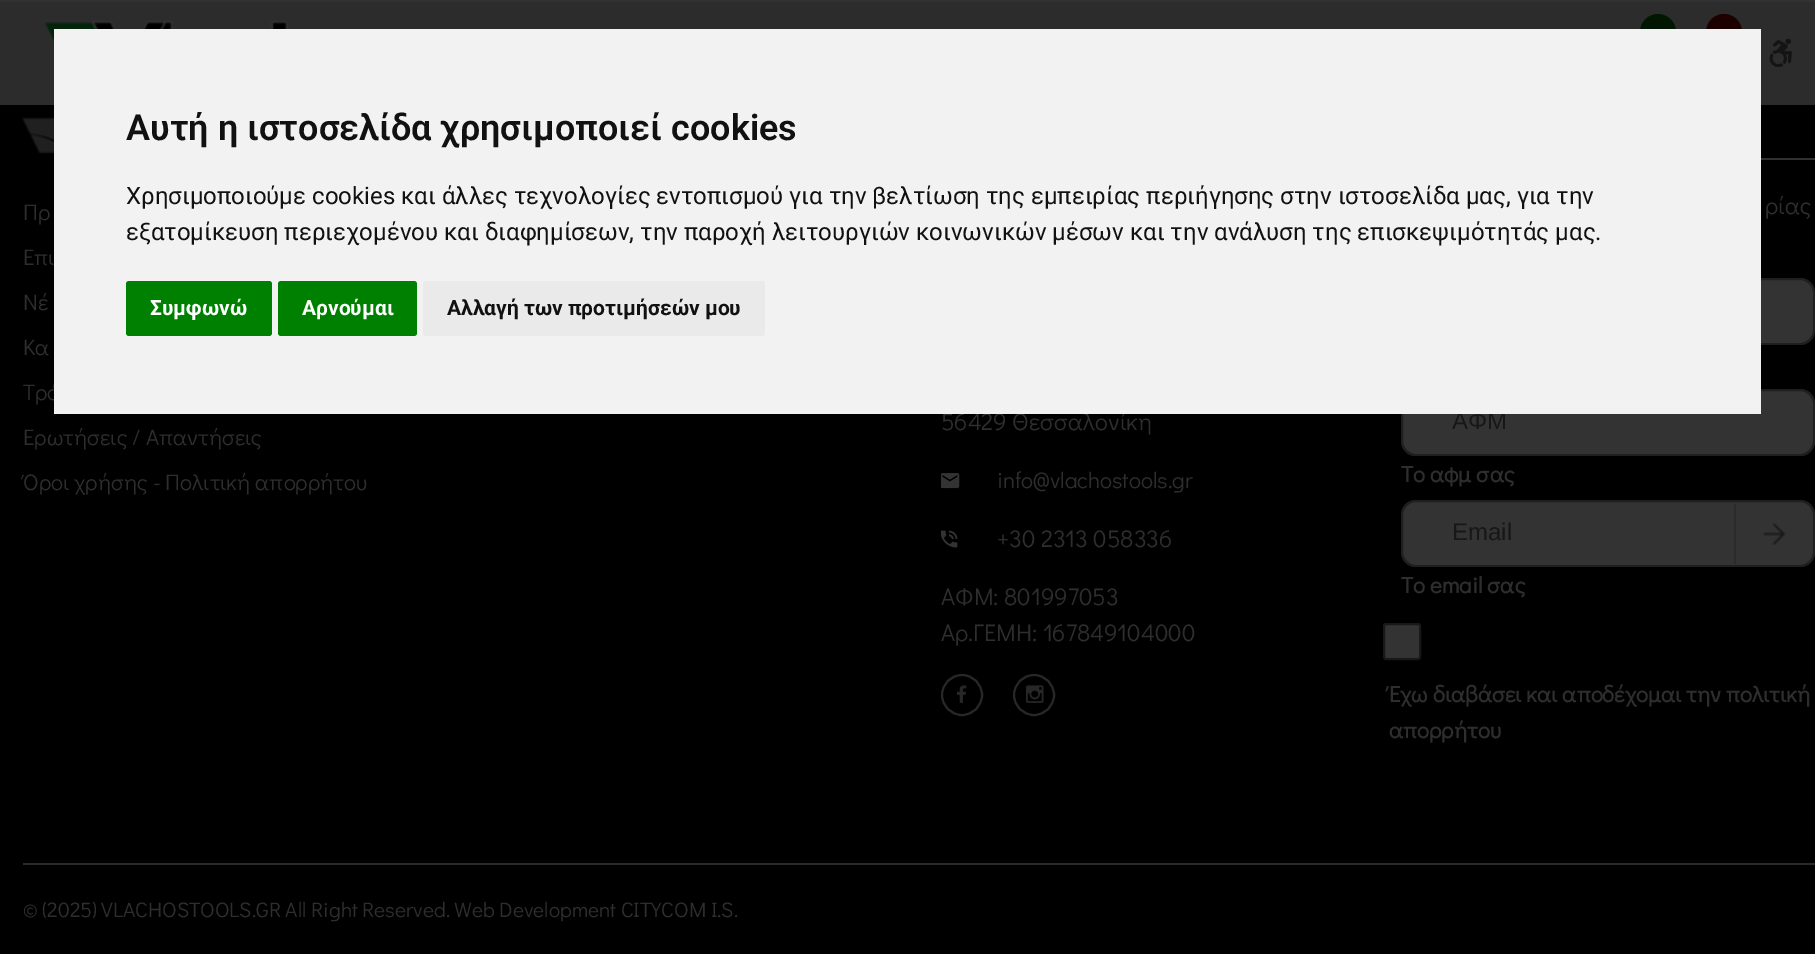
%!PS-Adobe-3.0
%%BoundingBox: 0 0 1815 954
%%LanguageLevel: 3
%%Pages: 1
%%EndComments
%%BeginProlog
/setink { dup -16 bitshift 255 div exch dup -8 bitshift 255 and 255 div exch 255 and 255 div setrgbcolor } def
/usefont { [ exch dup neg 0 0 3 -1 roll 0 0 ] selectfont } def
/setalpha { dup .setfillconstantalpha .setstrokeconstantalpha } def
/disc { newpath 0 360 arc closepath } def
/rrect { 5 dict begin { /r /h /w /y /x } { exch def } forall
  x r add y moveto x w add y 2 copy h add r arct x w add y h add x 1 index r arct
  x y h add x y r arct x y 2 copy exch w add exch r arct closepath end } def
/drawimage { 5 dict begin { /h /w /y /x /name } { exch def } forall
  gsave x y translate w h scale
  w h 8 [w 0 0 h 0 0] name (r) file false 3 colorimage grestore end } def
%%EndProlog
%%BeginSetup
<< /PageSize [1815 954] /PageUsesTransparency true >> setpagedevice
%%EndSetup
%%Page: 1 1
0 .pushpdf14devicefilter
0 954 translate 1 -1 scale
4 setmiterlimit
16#313132 setink
0 0 1815 954 rectfill
16#2C2C2D setink
0 2 1815 103 rectfill
(img1.raw) 45 21 244 23 drawimage
16#011701 setink
1658 32 18 disc fill
16#1C0000 setink
1724 32 18 disc fill
16#000000 setink
0 105 1815 849 rectfill
/DidactGothic-Regular 22.5 usefont
16#2E2E2E setink
23 400 moveto (Τρό) show
16#333333 setink
1401 278 414 67 15 rrect fill
0.4 setalpha
16#000000 setink
2 setlinewidth
1402 279 412 65 14 rrect stroke
1 setalpha
16#333333 setink
1401 389 414 67 15 rrect fill
0.4 setalpha
16#000000 setink
1402 390 412 65 14 rrect stroke
/LiberationSans-Regular 24 usefont
1 setalpha
16#171717 setink
1452 429 moveto (ΑΦΜ) show
/DidactGothic-Regular 24 usefont
16#2E2E2E setink
941 430 moveto (56429 Θεσσαλονίκη) show
16#F2F2F2 setink
54 29 1707 385 rectfill
/Roboto-SemiBold 36 usefont
16#111111 setink
126 140 moveto (Αυτή η ιστοσελίδα χρησιμοποιεί cookies) show
/Roboto-Regular 24 usefont
126 204 moveto (Χρησιμοποιούμε cookies και άλλες τεχνολογίες εντοπισμού για την βελτίωση της εμπειρίας περιήγησης στην ιστοσελίδα μας, για την) show
126 240 moveto (εξατομίκευση περιεχομένου και διαφημίσεων, την παροχή λειτουργιών κοινωνικών μέσων και την ανάλυση της επισκεψιμότητάς μας.) show
16#008000 setink
126 281 146 55 3 rrect fill
/Roboto-Bold 21 usefont
16#FFFFFF setink
150 315 moveto (Συμφωνώ) show
16#008000 setink
278 281 139 55 3 rrect fill
16#FFFFFF setink
302 315 moveto (Αρνούμαι) show
16#EAEAEA setink
423 281 342 55 3 rrect fill
16#111111 setink
447 315 moveto (Αλλαγή των προτιμήσεών μου) show
(img2.raw) 1769 38 23 30 drawimage
(img3.raw) 22 117 32 37 drawimage
/DidactGothic-Regular 22.5 usefont
16#2E2E2E setink
[
    [(Πρ) 23 220]
    [(Επι) 23 265]
    [(Νέ) 23 310]
    [(Κα) 23 355]
    [(Ερωτήσεις / Απαντήσεις) 23 445]
    [(Όροι χρήσης - Πολιτική απορρήτου) 23 490]
] { aload pop moveto show } forall
16#313131 setink
1761 158 54 2 rectfill
/DidactGothic-Regular 24 usefont
16#2E2E2E setink
1765 214 moveto (ρίας) show
/DidactGothic-Bold 22.5 usefont
1401 482 moveto (Το αφμ σας) show
16#333333 setink
1401 500 414 67 15 rrect fill
0.4 setalpha
16#000000 setink
1402 501 412 65 14 rrect stroke
/LiberationSans-Regular 24 usefont
1 setalpha
16#171717 setink
1452 540 moveto (Email) show
/DidactGothic-Bold 22.5 usefont
16#2E2E2E setink
1401 593 moveto (Το email σας) show
(img4.raw) 1762 523 24 22 drawimage
16#2B2B2B setink
1734 504 2 60 rectfill
16#333333 setink
1384 624 36 35 2 rrect gsave fill grestore
16#181818 setink
stroke
16#2E2E2E setink
1389 702 moveto (Έχω διαβάσει και αποδέχομαι την πολιτική) show
1389 738 moveto (απορρήτου) show
(img5.raw) 941 473 19 16 drawimage
/DidactGothic-Regular 22.5 usefont
997 488 moveto (info@vlachostools.gr) show
(img6.raw) 941 530 17 18 drawimage
/DidactGothic-Regular 24 usefont
[
    [(+30 2313 058336) 997 547]
    [(ΑΦΜ: 801997053) 941 605]
    [(Αρ.ΓΕΜΗ: 167849104000) 941 641]
] { aload pop moveto show } forall
16#272727 setink
962 695 20 disc stroke
(img7.raw) 957 685 10 18 drawimage
1034 695 20 disc stroke
(img8.raw) 1026 685 18 18 drawimage
16#2B2B2B setink
23 863 1792 2 rectfill
/DidactGothic-Regular 21 usefont
16#2E2E2E setink
23 917 moveto (© \(2025\) VLACHOSTOOLS.GR All Right Reserved.) show
454 917 moveto (Web Development CITYCOM I.S.) show
.poppdf14devicefilter showpage
%%EOF
